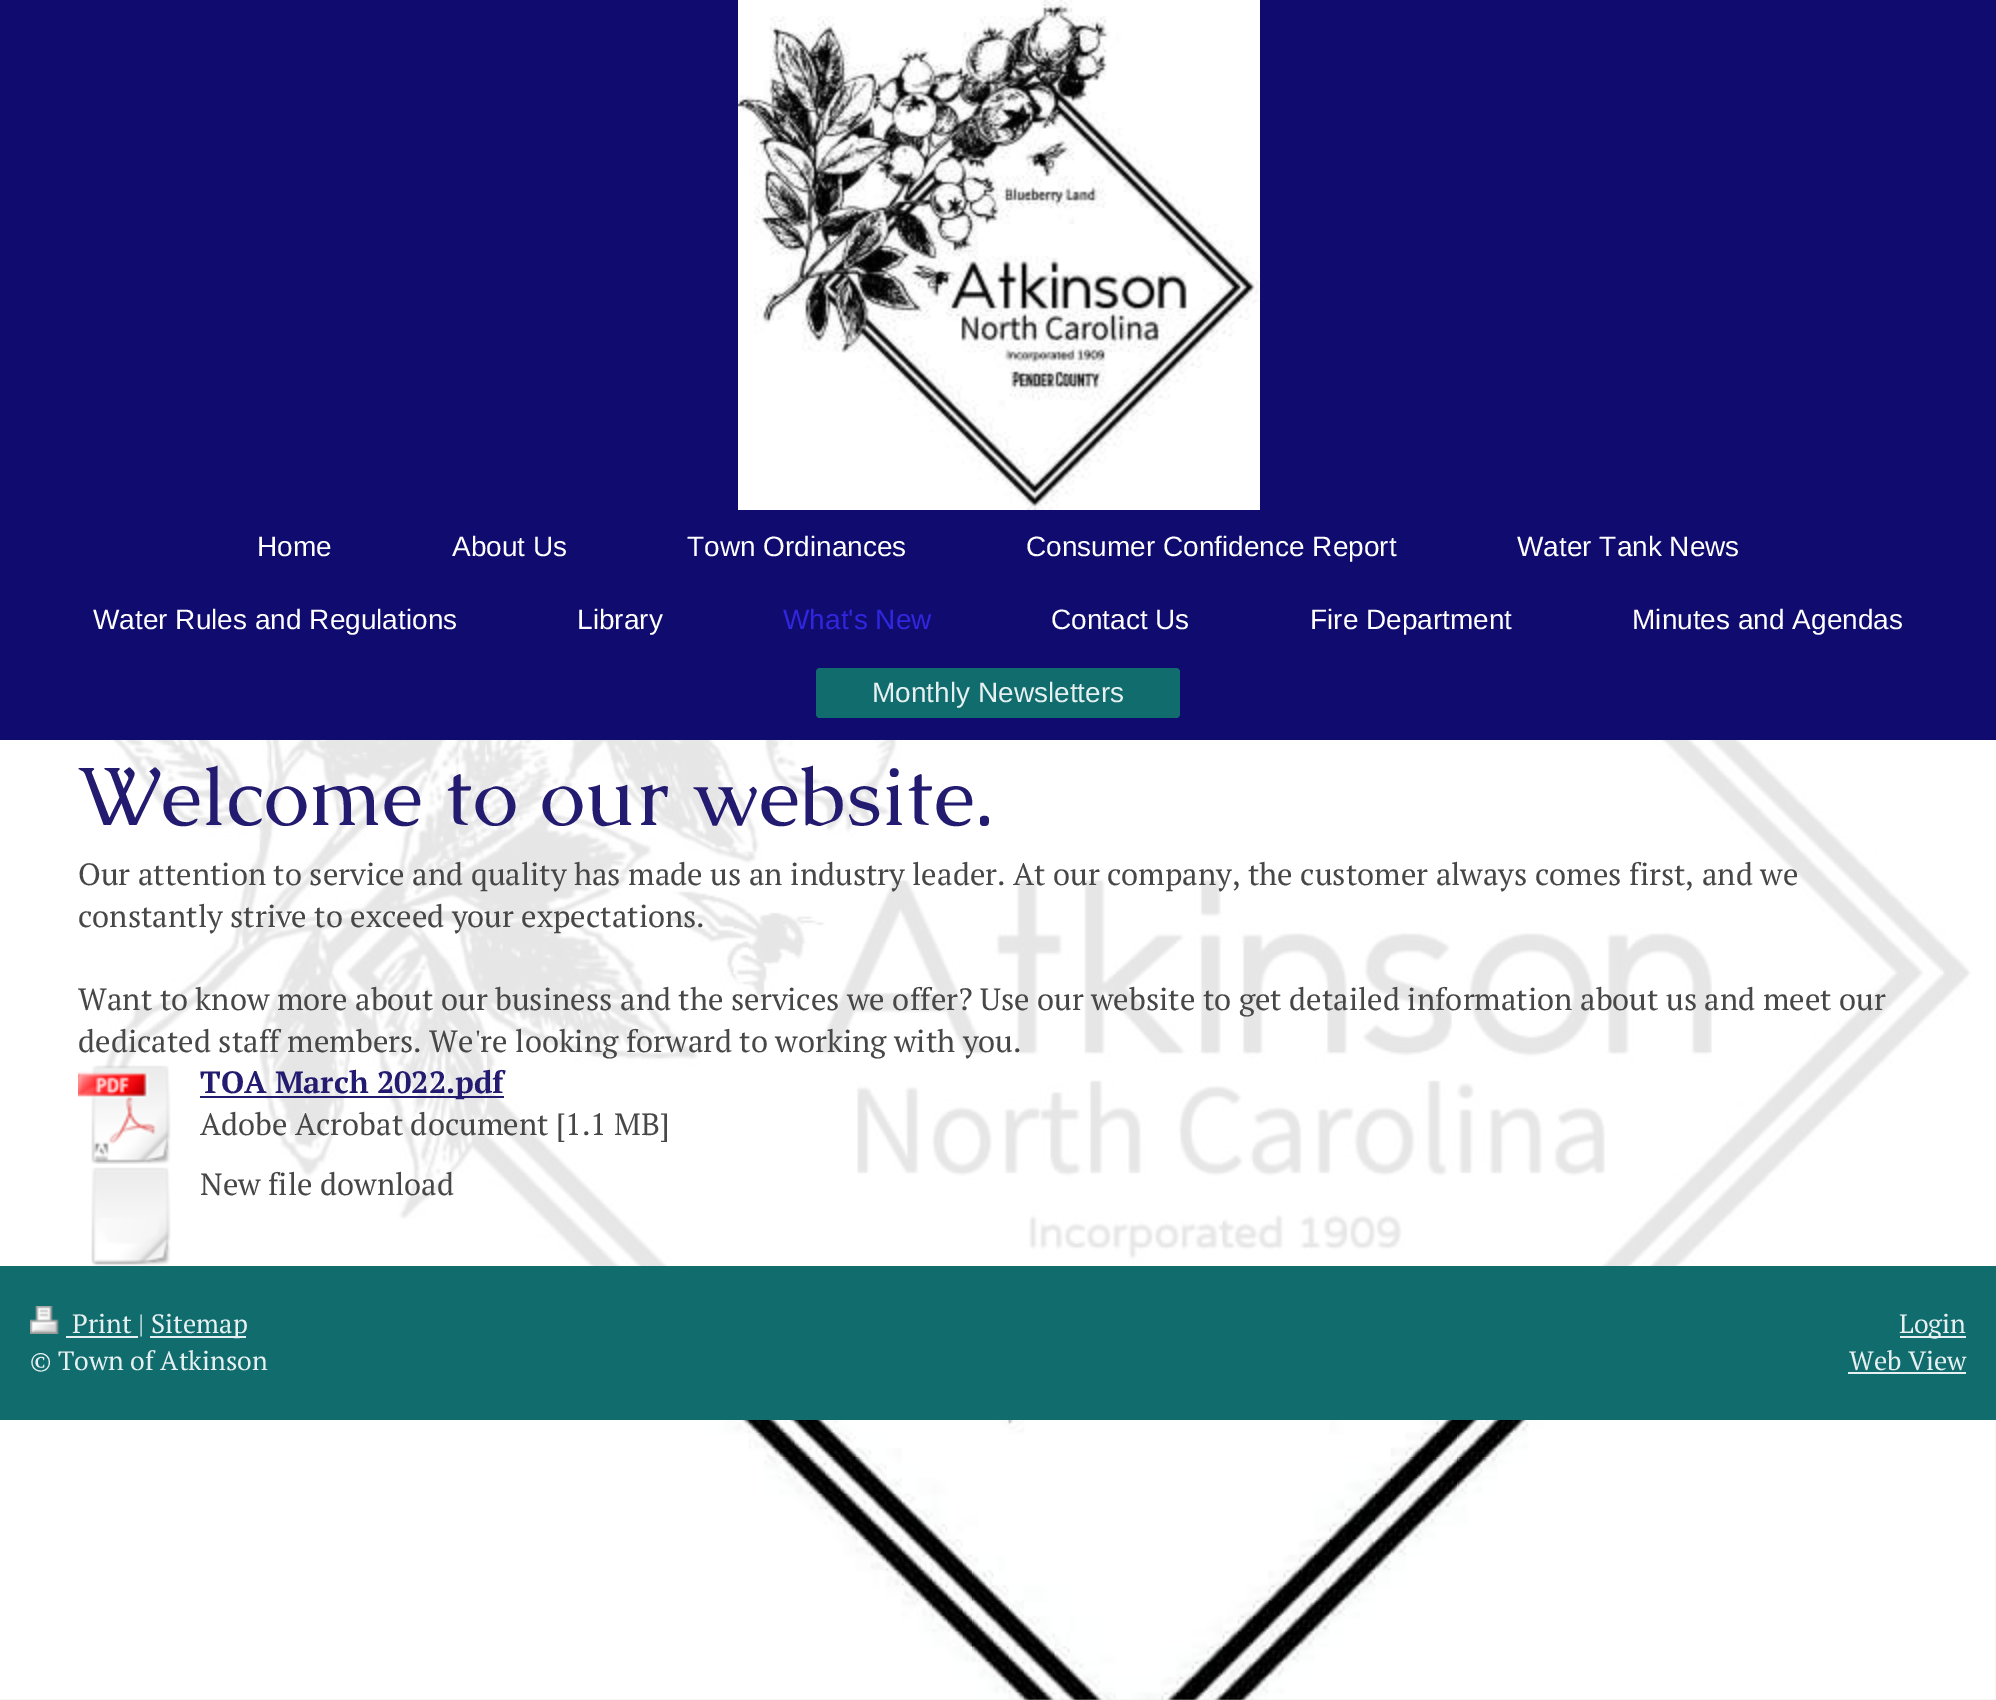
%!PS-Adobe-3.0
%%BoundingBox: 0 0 1996 1700
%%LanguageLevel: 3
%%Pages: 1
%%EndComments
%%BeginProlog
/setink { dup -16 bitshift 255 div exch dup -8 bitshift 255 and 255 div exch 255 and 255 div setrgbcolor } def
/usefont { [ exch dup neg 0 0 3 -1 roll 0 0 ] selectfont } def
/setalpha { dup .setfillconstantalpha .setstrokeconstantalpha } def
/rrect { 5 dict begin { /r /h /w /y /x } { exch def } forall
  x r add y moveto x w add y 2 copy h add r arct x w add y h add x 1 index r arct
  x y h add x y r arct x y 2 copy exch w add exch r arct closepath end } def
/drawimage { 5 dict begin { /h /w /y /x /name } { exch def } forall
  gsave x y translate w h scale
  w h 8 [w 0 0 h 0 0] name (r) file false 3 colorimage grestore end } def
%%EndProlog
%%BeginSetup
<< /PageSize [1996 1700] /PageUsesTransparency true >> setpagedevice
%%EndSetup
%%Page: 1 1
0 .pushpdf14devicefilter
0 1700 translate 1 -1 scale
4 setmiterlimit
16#E0E0E0 setink
0 0 1996 1700 rectfill
(img1.raw) 0 740 1996 960 drawimage
16#100B6E setink
0 0 1996 740 rectfill
(img2.raw) 738 0 522 510 drawimage
/LiberationSans-Regular 28 usefont
16#FFFFFF setink
[
    [(Home) 257 556]
    [(About Us) 452 556]
    [(Town Ordinances) 687 556]
    [(Consumer Confidence Report) 1026 556]
    [(Water Tank News) 1517 556]
    [(Water Rules and Regulations) 93 629]
    [(Library) 577 629]
] { aload pop moveto show } forall
16#2F26DD setink
783 629 moveto (What's New) show
16#FFFFFF setink
[
    [(Contact Us) 1051 629]
    [(Fire Department) 1310 629]
    [(Minutes and Agendas) 1632 629]
] { aload pop moveto show } forall
16#116C6E setink
816 668 364 50 4 rrect fill
818 717 360 1 rectfill
16#E7F0F1 setink
872 702 moveto (Monthly Newsletters) show
0.9 setalpha
16#FFFFFF setink
91 740 1905 526 rectfill
/Caudex-Regular 83.25 usefont
1 setalpha
16#231B6F setink
78 825 moveto (Welcome to our website.) show
/PTSerif-Regular 30.8 usefont
16#474747 setink
[
    [(Our attention to service and quality has made us an industry leader. At our company, the customer always comes first, and we) 78 885]
    [(constantly strive to exceed your expectations.) 78 927]
    [(Want to know more about our business and the services we offer? Use our website to get detailed information about us and meet our) 78 1010]
    [(dedicated staff members. We're looking forward to working with you.) 78 1052]
] { aload pop moveto show } forall
(img3.raw) 78 1065 93 99 drawimage
16#231B6F setink
200 1096 304 2 rectfill
/PTSerif-Bold 30.8 usefont
200 1093 moveto (TOA March 2022.pdf) show
/PTSerif-Regular 30.8 usefont
16#474747 setink
200 1135 moveto (Adobe Acrobat document [1.1 MB]) show
(img4.raw) 91 1167 80 99 drawimage
200 1195 moveto (New file download) show
16#116C6E setink
0 1266 1996 154 rectfill
(img5.raw) 30 1306 29 28 drawimage
16#E7F0F1 setink
66 1336 72 2 rectfill
/PTSerif-Regular 26.5 usefont
72 1333 moveto (Print |) show
150 1336 96 2 rectfill
151 1333 moveto (Sitemap) show
30 1370 moveto (© Town of Atkinson) show
1900 1336 66 2 rectfill
1899 1333 moveto (Login) show
1849 1370 moveto (Web View) show
1848 1372 118 2 rectfill
.poppdf14devicefilter showpage
%%EOF
